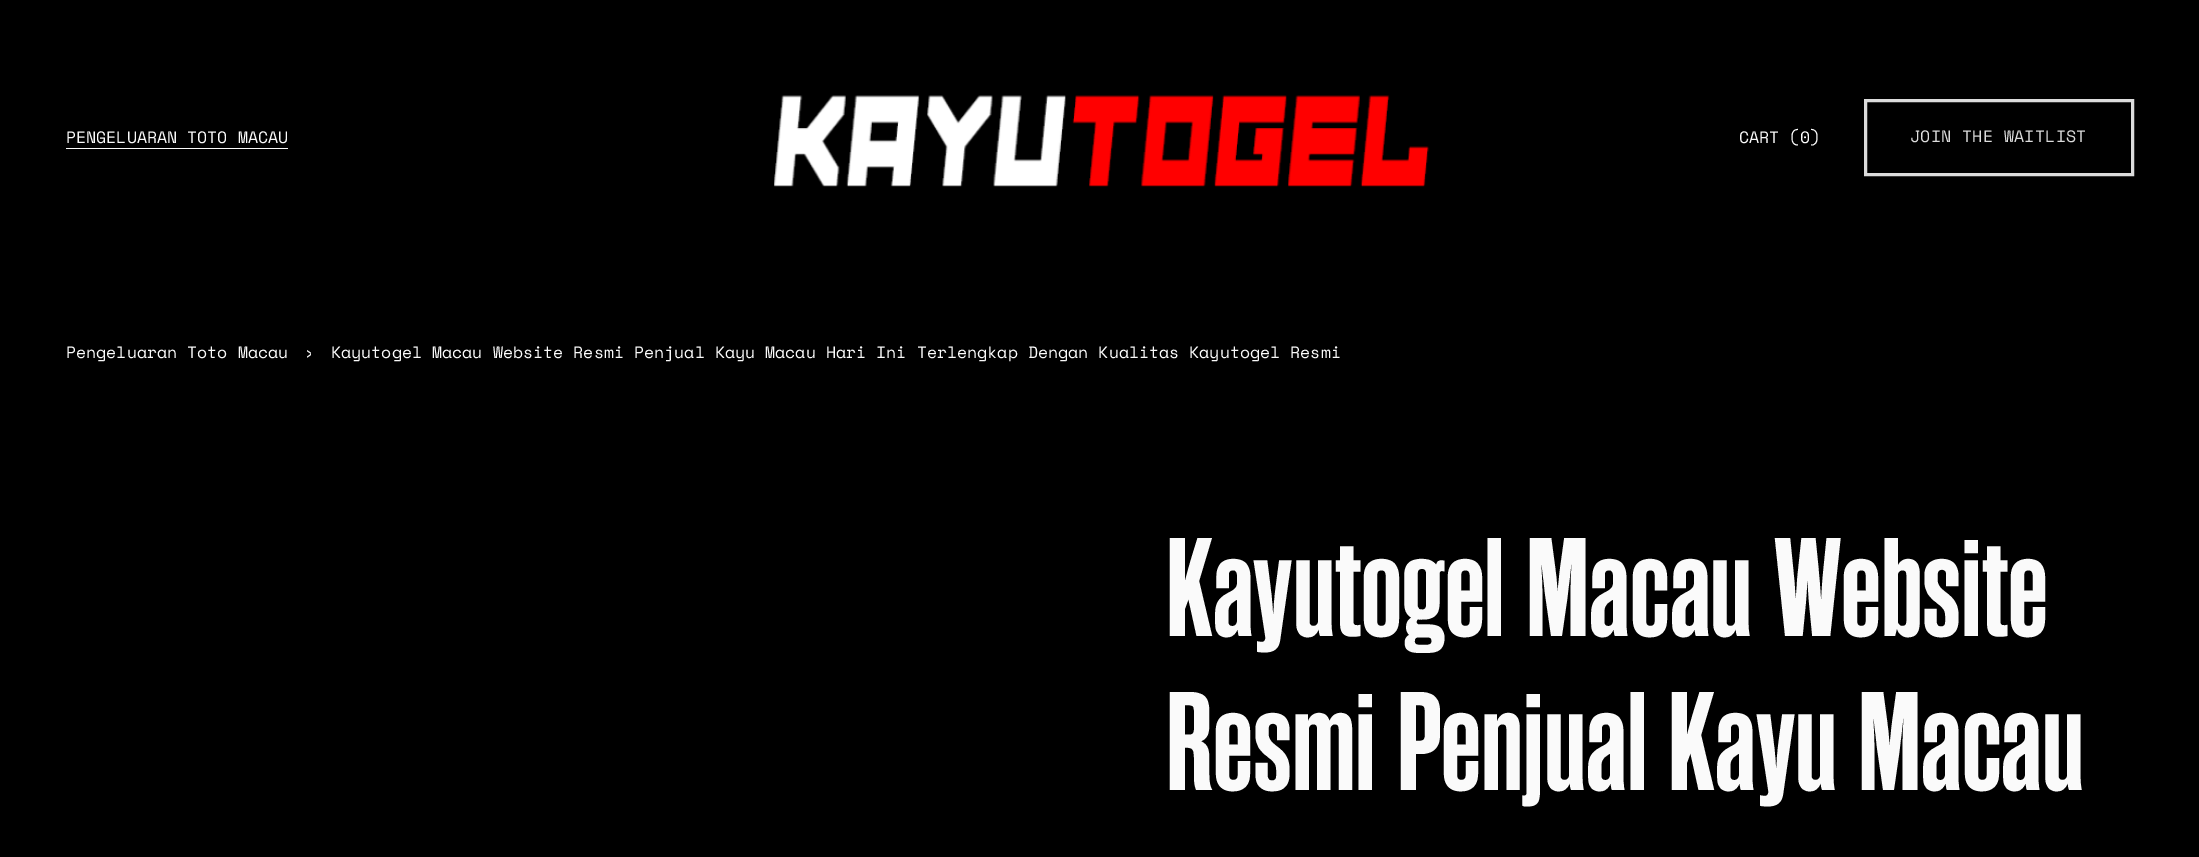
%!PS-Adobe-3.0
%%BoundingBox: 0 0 2199 857
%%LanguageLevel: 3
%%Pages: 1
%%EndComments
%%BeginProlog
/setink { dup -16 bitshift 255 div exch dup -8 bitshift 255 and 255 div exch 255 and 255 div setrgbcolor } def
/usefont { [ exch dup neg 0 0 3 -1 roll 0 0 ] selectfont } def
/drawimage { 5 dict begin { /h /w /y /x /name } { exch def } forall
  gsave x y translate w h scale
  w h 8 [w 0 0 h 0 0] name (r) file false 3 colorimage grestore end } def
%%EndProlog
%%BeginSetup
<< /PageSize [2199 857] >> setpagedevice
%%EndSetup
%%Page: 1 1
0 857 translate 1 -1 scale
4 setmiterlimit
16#000000 setink
0 0 2199 857 rectfill
16#FAFAFA setink
66 148 222 1 rectfill
/SpaceMono-Regular 16.5 usefont
66 143 moveto (PENGELUARAN TOTO MACAU) show
(img1.raw) 774 95 656 92 drawimage
1739 143 moveto (CART \(0\)) show
16#DCDCDC setink
3 setlinewidth
1865.5 100.5 267 74 rectstroke
1910 142 moveto 0.3 0 (JOIN THE WAITLIST) ashow
16#FAFAFA setink
[
    [(Pengeluaran Toto Macau) 66 358]
    [(›) 304 358]
    [(Kayutogel Macau Website Resmi Penjual Kayu Macau Hari Ini Terlengkap Dengan Kualitas Kayutogel Resmi) 331 358]
] { aload pop moveto show } forall
/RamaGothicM-Bold 140.25 usefont
1166 636 moveto (Kayutogel Macau Website) show
1166 790 moveto (Resmi Penjual Kayu Macau) show
showpage
%%EOF
